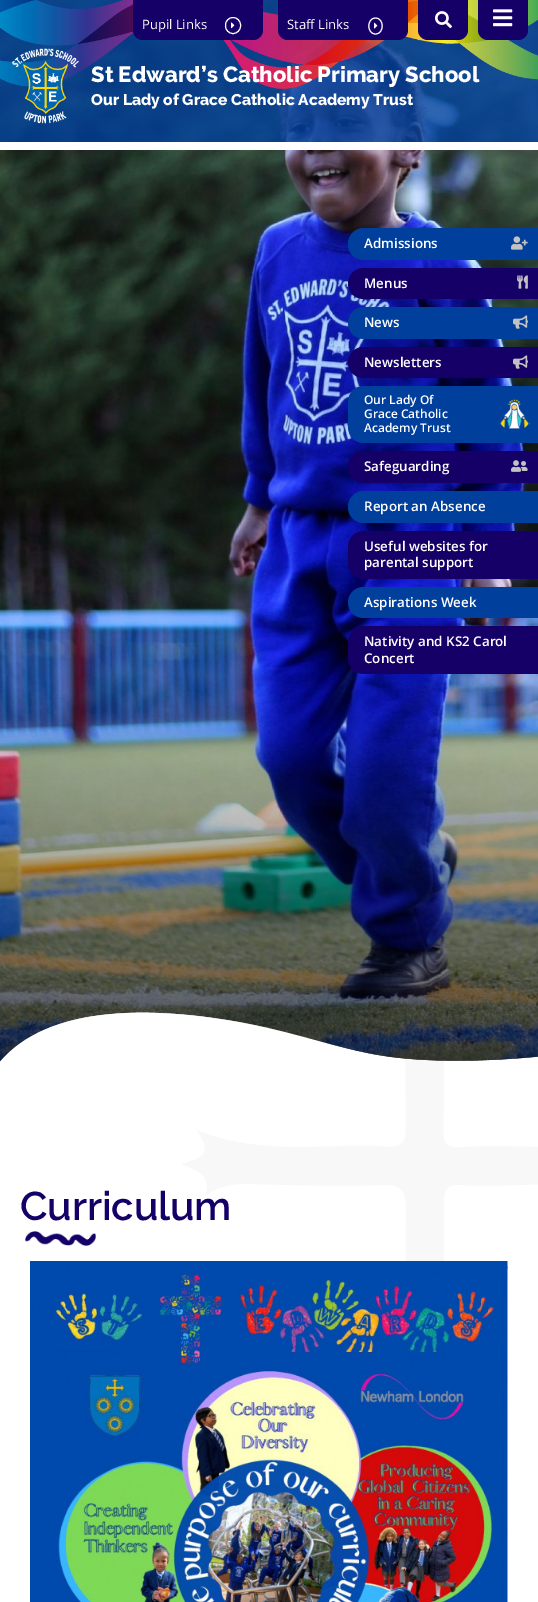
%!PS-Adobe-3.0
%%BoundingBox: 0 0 538 1602
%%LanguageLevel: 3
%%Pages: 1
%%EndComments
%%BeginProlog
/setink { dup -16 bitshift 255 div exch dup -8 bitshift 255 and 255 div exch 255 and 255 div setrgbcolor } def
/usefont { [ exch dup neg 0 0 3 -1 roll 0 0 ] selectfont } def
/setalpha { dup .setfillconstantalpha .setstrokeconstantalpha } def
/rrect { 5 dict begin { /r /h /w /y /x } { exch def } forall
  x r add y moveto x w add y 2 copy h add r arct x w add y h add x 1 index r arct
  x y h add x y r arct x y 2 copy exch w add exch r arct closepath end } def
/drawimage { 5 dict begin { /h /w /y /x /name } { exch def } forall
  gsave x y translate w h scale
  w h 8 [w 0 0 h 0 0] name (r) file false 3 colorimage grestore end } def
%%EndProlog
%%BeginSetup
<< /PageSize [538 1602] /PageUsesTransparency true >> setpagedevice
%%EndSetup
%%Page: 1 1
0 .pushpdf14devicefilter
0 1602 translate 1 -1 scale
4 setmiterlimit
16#FFFFFF setink
0 0 538 1602 rectfill
(img7.raw) 0 0 538 1062 drawimage
0.8 setalpha
16#00409C setink
0 0 538 142 rectfill
1 setalpha
(img4.raw) 0 0 538 89 drawimage
16#150068 setink
133 0 moveto 263 0 lineto 263 30 lineto 263 35.5 258.5 40 253 40 curveto 143 40 lineto 137.5 40 133 35.5 133 30 curveto closepath fill
/OpenSans-Regular 13 usefont
16#FFFFFF setink
142 29 moveto (Pupil Links) show
225.5 17.5 15 16 7.5 rrect stroke
(img1.raw) 231 22 4 7 drawimage
16#150068 setink
278 0 moveto 408 0 lineto 408 30 lineto 408 35.5 403.5 40 398 40 curveto 288 40 lineto 282.5 40 278 35.5 278 30 curveto closepath fill
16#FFFFFF setink
287 29 moveto (Staff Links) show
375.5 18 moveto 384.5 18 384.5 34 375.5 34 curveto 366.5 34 366.5 18 375.5 18 curveto closepath stroke
(img2.raw) 374 22 4 7 drawimage
16#150068 setink
418 0 moveto 468 0 lineto 468 30 lineto 468 35.5 463.5 40 458 40 curveto 428 40 lineto 422.5 40 418 35.5 418 30 curveto closepath fill
(img3.raw) 435 11 17 18 drawimage
16#FFFFFF setink
0 142 538 8 rectfill
16#150068 setink
478 -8 moveto 528 -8 lineto 528 30 lineto 528 35.5 523.5 40 518 40 curveto 488 40 lineto 482.5 40 478 35.5 478 30 curveto closepath fill
(img5.raw) 493 9 20 18 drawimage
(img6.raw) 12 48 67 76 drawimage
/Raleway-ExtraBold 22 usefont
16#FFFFFF setink
91 82 moveto (St Edward’s Catholic Primary School) show
/Raleway-ExtraBold 15.6 usefont
91 105 moveto (Our Lady of Grace Catholic Academy Trust) show
16#00409C setink
364 228 moveto 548 228 lineto 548 260 lineto 364 260 lineto 355 260 348 253 348 244 curveto 348 235 355 228 364 228 curveto closepath fill
/OpenSans-SemiBold 13.4 usefont
16#FFFFFF setink
364 248 moveto (Admissions) show
(img8.raw) 511 236 17 14 drawimage
16#150068 setink
363.5 268 moveto 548 268 lineto 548 299 lineto 363.5 299 lineto 355 299 348 292 348 283.5 curveto 348 275 355 268 363.5 268 curveto closepath fill
16#FFFFFF setink
364 288 moveto (Menus) show
(img9.raw) 517 275 11 14 drawimage
16#00409C setink
364 307 moveto 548 307 lineto 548 339 lineto 364 339 lineto 355 339 348 332 348 323 curveto 348 314 355 307 364 307 curveto closepath fill
16#FFFFFF setink
364 327 moveto (News) show
(img10.raw) 513 315 15 14 drawimage
16#150068 setink
363.5 347 moveto 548 347 lineto 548 378 lineto 363.5 378 lineto 355 378 348 371 348 362.5 curveto 348 354 355 347 363.5 347 curveto closepath fill
16#FFFFFF setink
364 367 moveto (Newsletters) show
(img11.raw) 513 355 15 14 drawimage
16#00409C setink
364 386 moveto 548 386 lineto 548 443 lineto 364 443 lineto 355 443 348 436 348 427 curveto 348 402 lineto 348 393 355 386 364 386 curveto closepath fill
/OpenSans-SemiBold 12 usefont
16#FFFFFF setink
[
    [(Our Lady Of) 364 404]
    [(Grace Catholic) 364 418]
    [(Academy Trust) 364 432]
] { aload pop moveto show } forall
(img12.raw) 500 399 30 30 drawimage
16#150068 setink
364 451 moveto 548 451 lineto 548 483 lineto 364 483 lineto 355 483 348 476 348 467 curveto 348 458 355 451 364 451 curveto closepath fill
/OpenSans-SemiBold 13.4 usefont
16#FFFFFF setink
364 471 moveto (Safeguarding) show
(img13.raw) 511 460 17 12 drawimage
16#00409C setink
364 491 moveto 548 491 lineto 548 523 lineto 364 523 lineto 355 523 348 516 348 507 curveto 348 498 355 491 364 491 curveto closepath fill
16#FFFFFF setink
364 511 moveto (Report an Absence) show
16#150068 setink
364 531 moveto 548 531 lineto 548 579 lineto 364 579 lineto 355 579 348 572 348 563 curveto 348 547 lineto 348 538 355 531 364 531 curveto closepath fill
16#FFFFFF setink
364 551 moveto (Useful websites for) show
364 567 moveto (parental support) show
16#00409C setink
363.5 587 moveto 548 587 lineto 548 618 lineto 363.5 618 lineto 355 618 348 611 348 602.5 curveto 348 594 355 587 363.5 587 curveto closepath fill
16#FFFFFF setink
364 607 moveto (Aspirations Week) show
16#150068 setink
364 626 moveto 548 626 lineto 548 674 lineto 364 674 lineto 355 674 348 667 348 658 curveto 348 642 lineto 348 633 355 626 364 626 curveto closepath fill
16#FFFFFF setink
364 646 moveto (Nativity and KS2 Carol) show
364 663 moveto (Concert) show
(img14.raw) 0 1012 538 109 drawimage
(img17.raw) 182 824 356 437 drawimage
/Raleway-SemiBold 40 usefont
16#150068 setink
20 1220 moveto (Curriculum) show
(img15.raw) 25 1231 71 15 drawimage
(img16.raw) 30 1261 478 341 drawimage
.poppdf14devicefilter showpage
%%EOF
